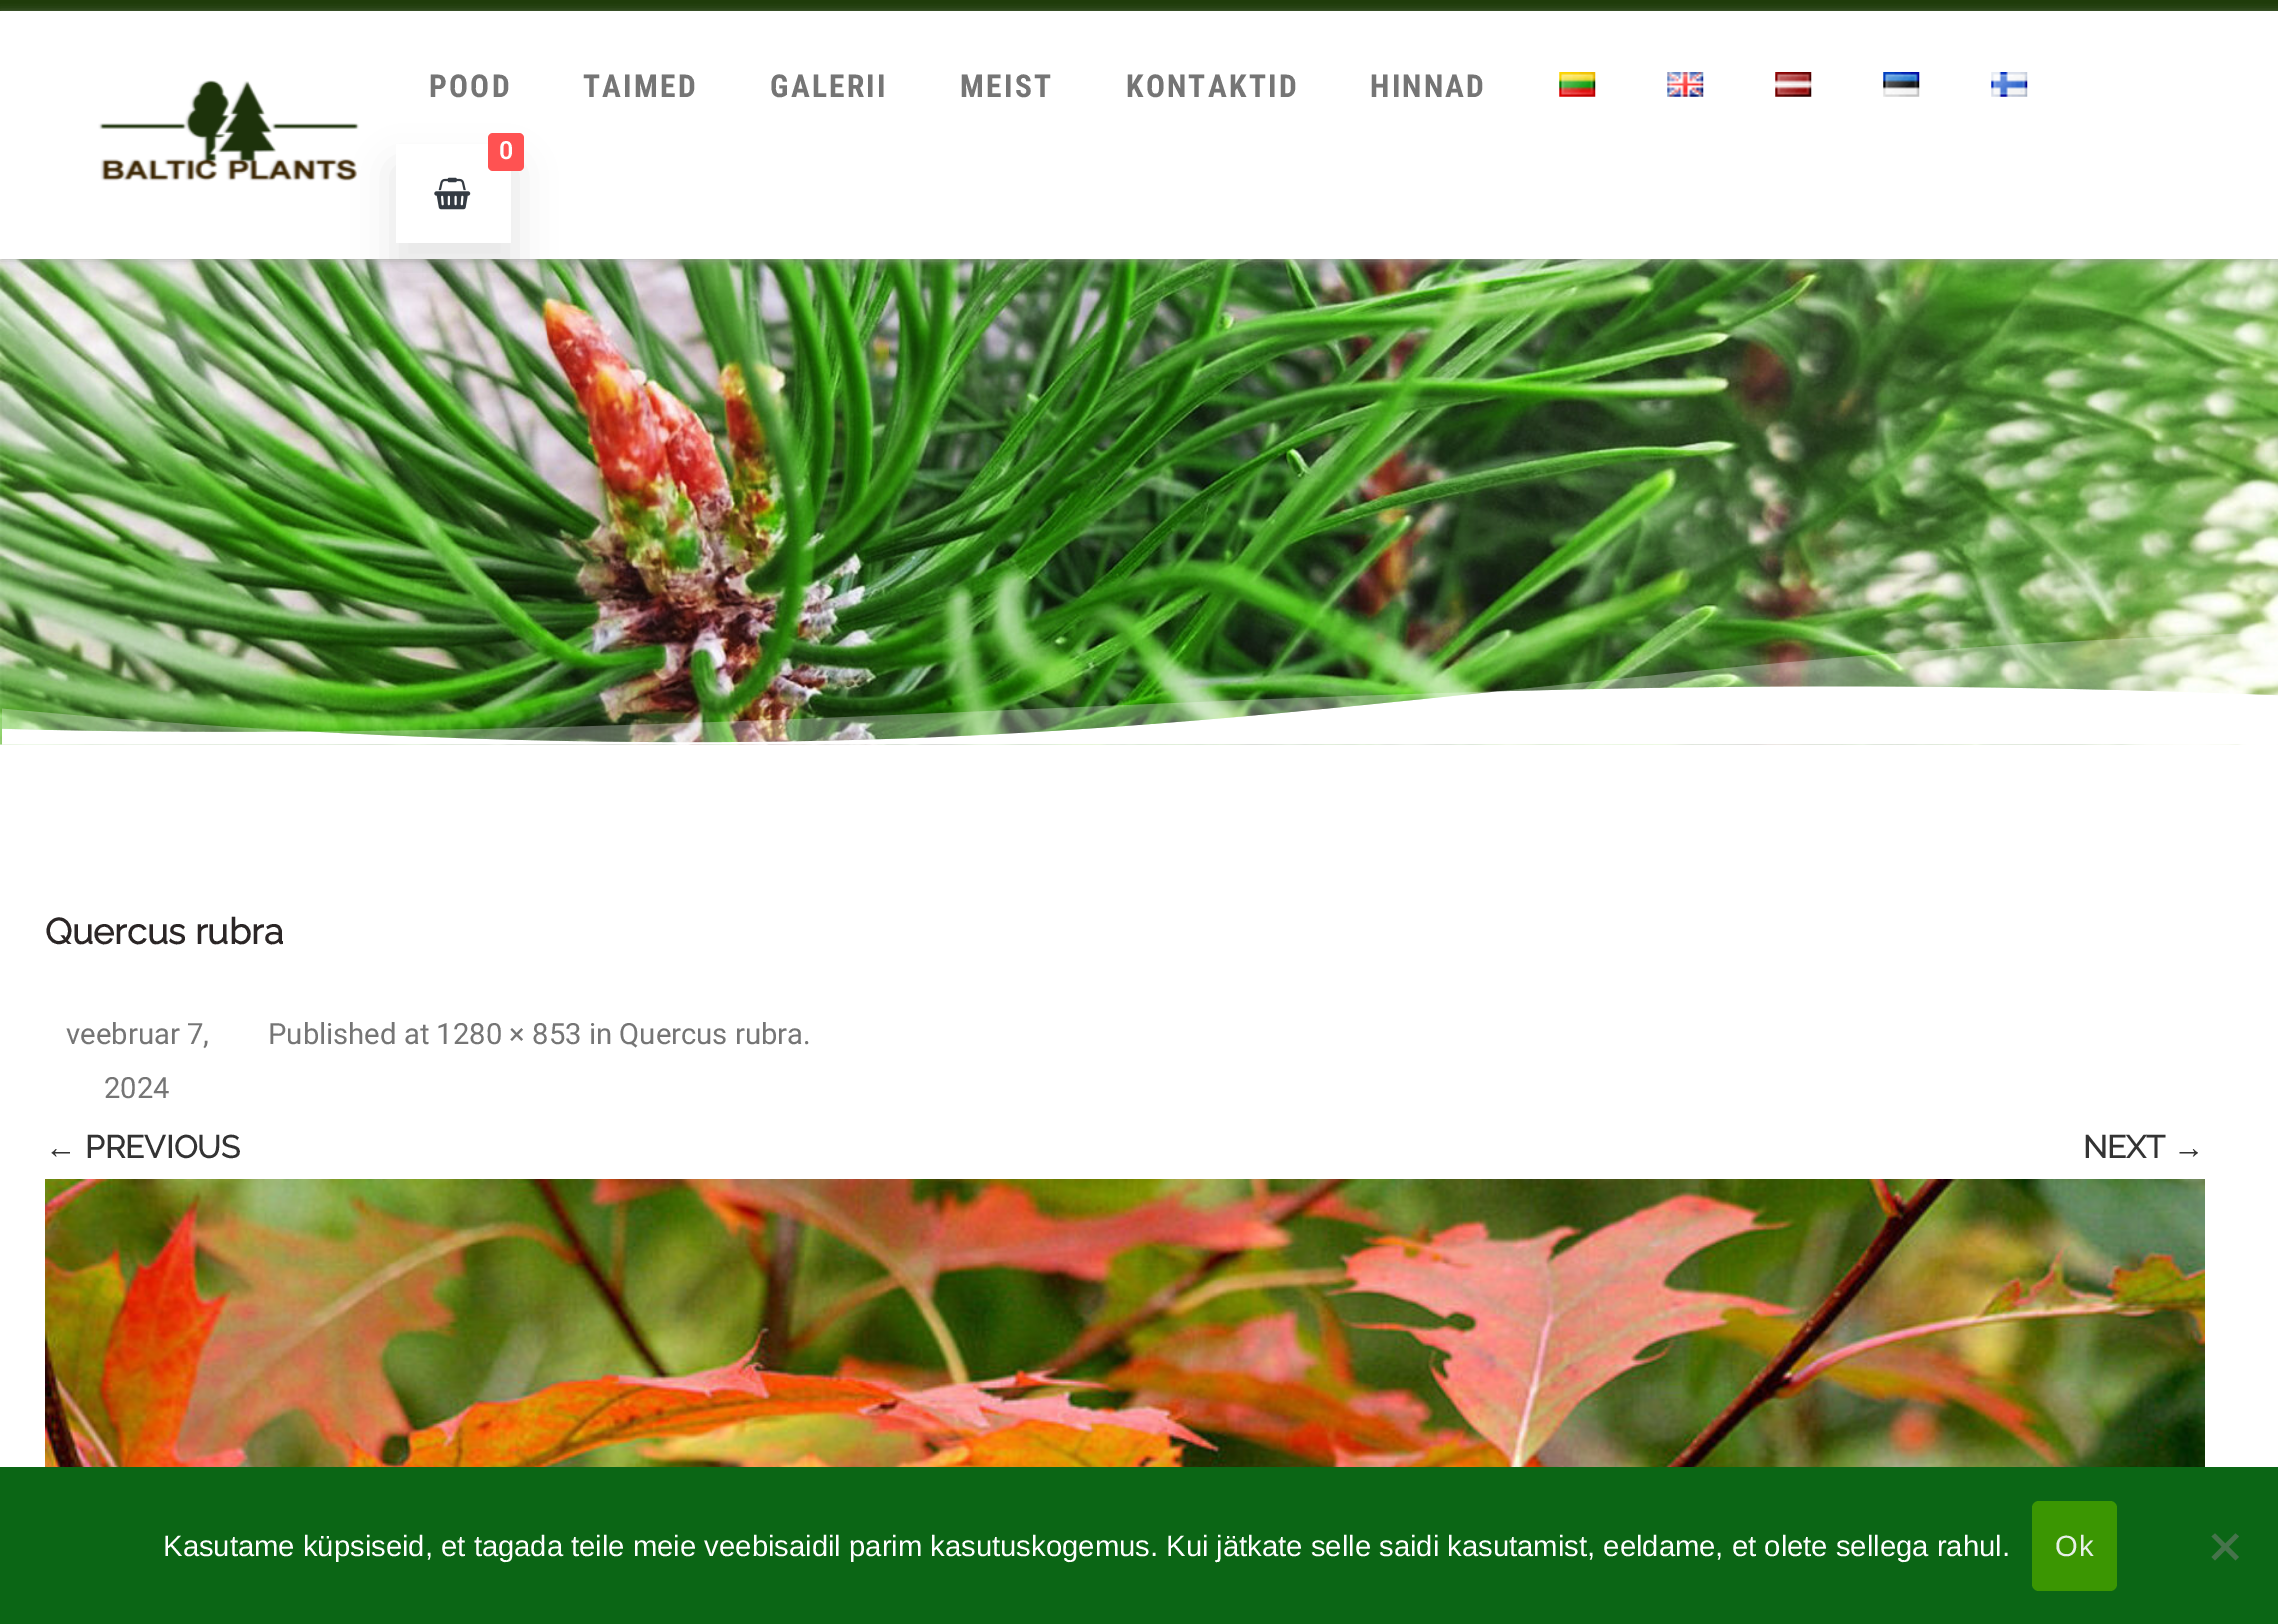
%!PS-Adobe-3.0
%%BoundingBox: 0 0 2278 1624
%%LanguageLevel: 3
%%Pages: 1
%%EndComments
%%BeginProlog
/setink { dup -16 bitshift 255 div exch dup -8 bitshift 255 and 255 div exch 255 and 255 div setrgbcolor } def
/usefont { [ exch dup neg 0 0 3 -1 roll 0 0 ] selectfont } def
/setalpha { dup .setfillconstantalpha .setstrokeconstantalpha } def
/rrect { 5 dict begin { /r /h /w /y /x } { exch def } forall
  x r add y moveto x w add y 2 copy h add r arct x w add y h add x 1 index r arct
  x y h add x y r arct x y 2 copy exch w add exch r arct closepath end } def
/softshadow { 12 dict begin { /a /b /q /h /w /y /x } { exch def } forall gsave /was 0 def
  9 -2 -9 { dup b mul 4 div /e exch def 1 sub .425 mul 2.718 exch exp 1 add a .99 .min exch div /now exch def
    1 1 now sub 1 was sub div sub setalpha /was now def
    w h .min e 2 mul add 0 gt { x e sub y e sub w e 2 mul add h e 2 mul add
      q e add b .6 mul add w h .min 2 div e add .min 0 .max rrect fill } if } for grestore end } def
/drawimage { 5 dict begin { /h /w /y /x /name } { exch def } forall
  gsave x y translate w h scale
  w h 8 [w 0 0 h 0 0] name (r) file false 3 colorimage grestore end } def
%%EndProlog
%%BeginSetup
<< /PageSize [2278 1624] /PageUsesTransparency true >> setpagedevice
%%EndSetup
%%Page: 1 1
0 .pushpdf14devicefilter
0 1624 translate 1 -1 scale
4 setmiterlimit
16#FFFFFF setink
0 0 2278 1624 rectfill
16#1F3C0A setink
0 0 2278 11 rectfill
(img8.raw) 0 259 2278 486 drawimage
gsave
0 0 moveto 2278 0 lineto 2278 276 lineto 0 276 lineto closepath 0 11 moveto 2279 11 lineto 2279 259 lineto 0 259 lineto closepath eoclip newpath
16#A7A9A4 setink
0 14 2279 247 0 4.5 0.75 softshadow
grestore
(img1.raw) 98 80 261 101 drawimage
/RobotoCondensed-Bold 31.5 usefont
16#757575 setink
429 97 moveto 2.25 0 (POOD) ashow
583 97 moveto 2.25 0 (TAIMED) ashow
770 97 moveto 2.25 0 (GALERII) ashow
960 97 moveto 2.25 0 (MEIST) ashow
1126 97 moveto 2.25 0 (KONTAKTID) ashow
1370 97 moveto 2.25 0 (HINNAD) ashow
(img2.raw) 1559 72 37 25 drawimage
(img3.raw) 1667 72 37 25 drawimage
(img4.raw) 1775 72 37 25 drawimage
(img5.raw) 1883 72 37 25 drawimage
(img6.raw) 1991 72 37 25 drawimage
gsave
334 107 moveto 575 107 lineto 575 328 lineto 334 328 lineto closepath 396 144 moveto 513 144 lineto 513 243 lineto 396 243 lineto closepath eoclip newpath
16#404040 setink
394 167 121 101 0 19.5 0.13 softshadow
grestore
16#FF5252 setink
488 133 36 38 5 rrect fill
/Roboto-SemiBold 25 usefont
16#FFFFFF setink
499 159 moveto (0) show
16#F1F1F1 setink
511 171 2 72 rectfill
(img7.raw) 434 177 37 33 drawimage
(img9.raw) 2 633 2276 112 drawimage
/Raleway-Bold 36 usefont
16#2B2626 setink
45 944 moveto (Quercus rubra) show
/Roboto-Regular 29.25 usefont
16#757575 setink
[
    [(veebruar 7,) 66 1044]
    [(2024) 104 1098]
    [(Published at 1280 × 853 in Quercus rubra.) 268 1044]
] { aload pop moveto show } forall
/LiberationSans-Bold 31.5 usefont
16#333333 setink
45 1158 moveto (←) show
/Raleway-Bold 31.5 usefont
85 1158 moveto (PREVIOUS) show
2083 1158 moveto (NEXT) show
/LiberationSans-Bold 31.5 usefont
2173 1158 moveto (→) show
(img10.raw) 45 1179 2160 288 drawimage
16#0B6615 setink
0 1467 2278 157 rectfill
/LiberationSans-Regular 29.25 usefont
16#FFFFFF setink
163 1556 moveto (Kasutame küpsiseid, et tagada teile meie veebisaidil parim kasutuskogemus. Kui jätkate selle saidi kasutamist, eeldame, et olete sellega rahul.) show
16#3B9602 setink
2032 1501 85 90 7 rrect fill
16#E7F0E8 setink
2055 1556 moveto 1 0 (Ok) ashow
16#46734B setink
2235.5 1533.5 moveto 2239 1536.5 lineto 2215 1560.5 lineto 2211.5 1557 lineto closepath fill
2211.5 1536.5 moveto 2215 1533.5 lineto 2239 1557 lineto 2235.5 1560.5 lineto closepath fill
.poppdf14devicefilter showpage
%%EOF
